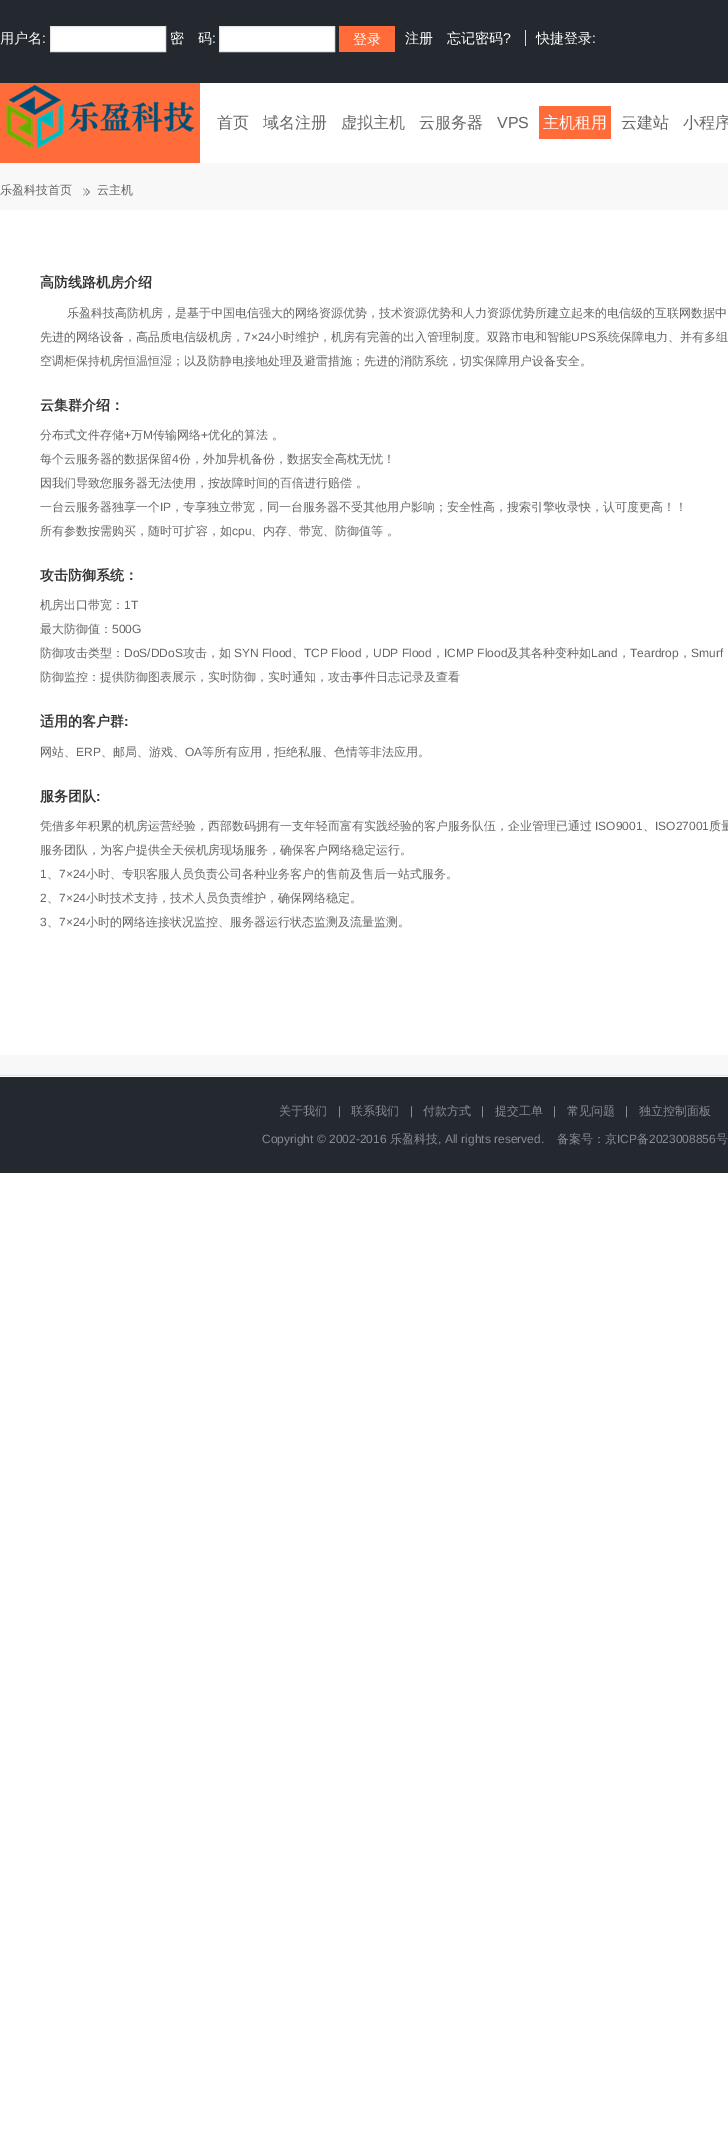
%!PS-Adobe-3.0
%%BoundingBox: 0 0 728 2135
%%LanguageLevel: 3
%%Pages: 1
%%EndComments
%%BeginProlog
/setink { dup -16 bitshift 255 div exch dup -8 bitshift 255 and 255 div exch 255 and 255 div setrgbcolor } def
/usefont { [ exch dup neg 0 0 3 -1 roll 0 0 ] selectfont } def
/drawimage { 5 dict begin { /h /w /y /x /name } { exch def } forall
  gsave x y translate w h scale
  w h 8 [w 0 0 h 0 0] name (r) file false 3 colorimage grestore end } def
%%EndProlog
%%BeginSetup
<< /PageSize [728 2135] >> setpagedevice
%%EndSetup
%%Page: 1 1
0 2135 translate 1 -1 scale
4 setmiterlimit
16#FFFFFF setink
0 0 728 2135 rectfill
16#24292F setink
0 0 728 83 rectfill
/WenQuanYiZenHei-Medium 14 usefont
16#FFFFFF setink
0 43 moveto (用户名) show
/LiberationSans-Regular 14 usefont
42 43 moveto (:) show
50.5 26.5 moveto 165.5 26.5 lineto 165.5 51.5 lineto 50.5 51.5 lineto closepath gsave fill grestore
16#E6E6E6 setink
stroke
/WenQuanYiZenHei-Medium 14 usefont
16#FFFFFF setink
170 43 moveto (密　码) show
/LiberationSans-Regular 14 usefont
212 43 moveto (:) show
219.5 26.5 moveto 334.5 26.5 lineto 334.5 51.5 lineto 219.5 51.5 lineto closepath gsave fill grestore
16#E6E6E6 setink
stroke
16#FF6C3A setink
339 26 56 26 rectfill
/WenQuanYiZenHei-Medium 14 usefont
16#FFFFFF setink
[
    [(登录) 353 44]
    [(注册) 405 43]
    [(忘记密码) 447 43]
] { aload pop moveto show } forall
/LiberationSans-Regular 14 usefont
503 43 moveto (?) show
/WenQuanYiZenHei-Medium 14 usefont
536 43 moveto (快捷登录) show
16#DADADA setink
525 30 1 16 rectfill
/LiberationSans-Regular 14 usefont
16#FFFFFF setink
592 43 moveto (:) show
16#FF6C3A setink
0 83 200 80 rectfill
(img1.raw) 6 84 189 65 drawimage
/WenQuanYiZenHei-Medium 16 usefont
16#666666 setink
[
    [(首页) 217 128]
    [(域名注册) 263 128]
    [(虚拟主机) 341 128]
    [(云服务器) 419 128]
] { aload pop moveto show } forall
/LiberationSans-Regular 16 usefont
497 128 moveto (VPS) show
16#FF6C3A setink
539 106 72 33 rectfill
/WenQuanYiZenHei-Medium 16 usefont
16#FFFFFF setink
543 128 moveto (主机租用) show
16#666666 setink
621 128 moveto (云建站) show
683 128 moveto (小程序) show
16#F8F8F8 setink
0 163 728 912 rectfill
/WenQuanYiZenHei-Medium 12 usefont
16#666666 setink
0 194 moveto (乐盈科技首页) show
(img2.raw) 83 188 7 8 drawimage
97 194 moveto (云主机) show
16#FFFFFF setink
0 210 728 845 rectfill
/WenQuanYiZenHei-Bold 14 usefont
16#333333 setink
40 287 moveto (高防线路机房介绍) show
/WenQuanYiZenHei-Medium 12 usefont
16#666666 setink
67 317 moveto (乐盈科技高防机房，是基于中国电信强大的网络资源优势，技术资源优势和人力资源优势所建立起来的电信级的互联网数据中) show
40 341 moveto (先进的网络设备，高品质电信级机房，) show
/LiberationSans-Regular 12 usefont
244 341 moveto (7×24) show
/WenQuanYiZenHei-Medium 12 usefont
271 341 moveto (小时维护，机房有完善的出入管理制度。双路市电和智能) show
/LiberationSans-Regular 12 usefont
571 341 moveto (UPS) show
/WenQuanYiZenHei-Medium 12 usefont
596 341 moveto (系统保障电力、并有多组) show
40 365 moveto (空调柜保持机房恒温恒湿；以及防静电接地处理及避雷措施；先进的消防系统，切实保障用户设备安全。) show
/WenQuanYiZenHei-Bold 14 usefont
16#333333 setink
40 410 moveto (云集群介绍：) show
/WenQuanYiZenHei-Medium 12 usefont
16#666666 setink
40 439 moveto (分布式文件存储) show
/LiberationSans-Regular 12 usefont
124 439 moveto (+) show
/WenQuanYiZenHei-Medium 12 usefont
131 439 moveto (万) show
/LiberationSans-Regular 12 usefont
143 439 moveto (M) show
/WenQuanYiZenHei-Medium 12 usefont
153 439 moveto (传输网络) show
/LiberationSans-Regular 12 usefont
201 439 moveto (+) show
/WenQuanYiZenHei-Medium 12 usefont
208 439 moveto (优化的算法 。) show
40 463 moveto (每个云服务器的数据保留) show
/LiberationSans-Regular 12 usefont
172 463 moveto (4) show
/WenQuanYiZenHei-Medium 12 usefont
[
    [(份，外加异机备份，数据安全高枕无忧！) 179 463]
    [(因我们导致您服务器无法使用，按故障时间的百倍进行赔偿 。) 40 487]
    [(一台云服务器独享一个) 40 511]
] { aload pop moveto show } forall
/LiberationSans-Regular 12 usefont
160 511 moveto (IP) show
/WenQuanYiZenHei-Medium 12 usefont
171 511 moveto (，专享独立带宽，同一台服务器不受其他用户影响；安全性高，搜索引擎收录快，认可度更高！！) show
40 535 moveto (所有参数按需购买，随时可扩容，如) show
/LiberationSans-Regular 12 usefont
232 535 moveto (cpu) show
/WenQuanYiZenHei-Medium 12 usefont
251 535 moveto (、内存、带宽、防御值等 。) show
/WenQuanYiZenHei-Bold 14 usefont
16#333333 setink
40 580 moveto (攻击防御系统：) show
/WenQuanYiZenHei-Medium 12 usefont
16#666666 setink
40 609 moveto (机房出口带宽：) show
/LiberationSans-Regular 12 usefont
124 609 moveto (1T) show
/WenQuanYiZenHei-Medium 12 usefont
40 633 moveto (最大防御值：) show
/LiberationSans-Regular 12 usefont
112 633 moveto (500G) show
/WenQuanYiZenHei-Medium 12 usefont
40 657 moveto (防御攻击类型：) show
/LiberationSans-Regular 12 usefont
124 657 moveto (DoS/DDoS) show
/WenQuanYiZenHei-Medium 12 usefont
183 657 moveto (攻击，如) show
/LiberationSans-Regular 12 usefont
234 657 moveto (SYN Flood) show
/WenQuanYiZenHei-Medium 12 usefont
292 657 moveto (、) show
/LiberationSans-Regular 12 usefont
304 657 moveto (TCP Flood) show
/WenQuanYiZenHei-Medium 12 usefont
361 657 moveto (，) show
/LiberationSans-Regular 12 usefont
373 657 moveto (UDP Flood) show
/WenQuanYiZenHei-Medium 12 usefont
432 657 moveto (，) show
/LiberationSans-Regular 12 usefont
444 657 moveto (ICMP Flood) show
/WenQuanYiZenHei-Medium 12 usefont
507 657 moveto (及其各种变种如) show
/LiberationSans-Regular 12 usefont
591 657 moveto (Land) show
/WenQuanYiZenHei-Medium 12 usefont
618 657 moveto (，) show
/LiberationSans-Regular 12 usefont
630 657 moveto (Teardrop) show
/WenQuanYiZenHei-Medium 12 usefont
679 657 moveto (，) show
/LiberationSans-Regular 12 usefont
691 657 moveto (Smurf) show
/WenQuanYiZenHei-Medium 12 usefont
40 681 moveto (防御监控：提供防御图表展示，实时防御，实时通知，攻击事件日志记录及查看) show
/WenQuanYiZenHei-Bold 14 usefont
16#333333 setink
40 726 moveto (适用的客户群) show
/LiberationSans-Bold 14 usefont
124 726 moveto (:) show
/WenQuanYiZenHei-Medium 12 usefont
16#666666 setink
40 756 moveto (网站、) show
/LiberationSans-Regular 12 usefont
76 756 moveto (ERP) show
/WenQuanYiZenHei-Medium 12 usefont
101 756 moveto (、邮局、游戏、) show
/LiberationSans-Regular 12 usefont
185 756 moveto (OA) show
/WenQuanYiZenHei-Medium 12 usefont
202 756 moveto (等所有应用，拒绝私服、色情等非法应用。) show
/WenQuanYiZenHei-Bold 14 usefont
16#333333 setink
40 801 moveto (服务团队) show
/LiberationSans-Bold 14 usefont
96 801 moveto (:) show
/WenQuanYiZenHei-Medium 12 usefont
16#666666 setink
40 830 moveto (凭借多年积累的机房运营经验，西部数码拥有一支年轻而富有实践经验的客户服务队伍，企业管理已通过) show
/LiberationSans-Regular 12 usefont
595 830 moveto (ISO9001) show
/WenQuanYiZenHei-Medium 12 usefont
643 830 moveto (、) show
/LiberationSans-Regular 12 usefont
655 830 moveto (ISO27001) show
/WenQuanYiZenHei-Medium 12 usefont
709 830 moveto (质量) show
40 854 moveto (服务团队，为客户提供全天侯机房现场服务，确保客户网络稳定运行。) show
/LiberationSans-Regular 12 usefont
40 878 moveto (1) show
59 878 moveto (7×24) show
/WenQuanYiZenHei-Medium 12 usefont
86 878 moveto (小时、专职客服人员负责公司各种业务客户的售前及售后一站式服务。) show
47 878 moveto (、) show
/LiberationSans-Regular 12 usefont
40 902 moveto (2) show
59 902 moveto (7×24) show
/WenQuanYiZenHei-Medium 12 usefont
86 902 moveto (小时技术支持，技术人员负责维护，确保网络稳定。) show
47 902 moveto (、) show
/LiberationSans-Regular 12 usefont
40 926 moveto (3) show
59 926 moveto (7×24) show
/WenQuanYiZenHei-Medium 12 usefont
86 926 moveto (小时的网络连接状况监控、服务器运行状态监测及流量监测。) show
47 926 moveto (、) show
16#24292F setink
0 1077 728 96 rectfill
16#E4E4E4 setink
0 1075 728 1 rectfill
16#898B92 setink
279 1115 moveto (关于我们) show
/LiberationSans-Regular 12 usefont
338 1115 moveto (|) show
/WenQuanYiZenHei-Medium 12 usefont
351 1115 moveto (联系我们) show
/LiberationSans-Regular 12 usefont
410 1115 moveto (|) show
/WenQuanYiZenHei-Medium 12 usefont
423 1115 moveto (付款方式) show
/LiberationSans-Regular 12 usefont
481 1115 moveto (|) show
/WenQuanYiZenHei-Medium 12 usefont
495 1115 moveto (提交工单) show
/LiberationSans-Regular 12 usefont
553 1115 moveto (|) show
/WenQuanYiZenHei-Medium 12 usefont
567 1115 moveto (常见问题) show
/LiberationSans-Regular 12 usefont
625 1115 moveto (|) show
/WenQuanYiZenHei-Medium 12 usefont
639 1115 moveto (独立控制面板) show
/LiberationSans-Regular 12 usefont
262 1143 moveto (Copyright © 2002-2016) show
/WenQuanYiZenHei-Medium 12 usefont
390 1143 moveto (乐盈科技) show
/LiberationSans-Regular 12 usefont
438 1143 moveto (, All rights reserved.) show
/WenQuanYiZenHei-Medium 12 usefont
557 1143 moveto (备案号：京) show
/LiberationSans-Regular 12 usefont
617 1143 moveto (ICP) show
/WenQuanYiZenHei-Medium 12 usefont
637 1143 moveto (备) show
/LiberationSans-Regular 12 usefont
649 1143 moveto (2023008856) show
/WenQuanYiZenHei-Medium 12 usefont
716 1143 moveto (号) show
showpage
%%EOF
